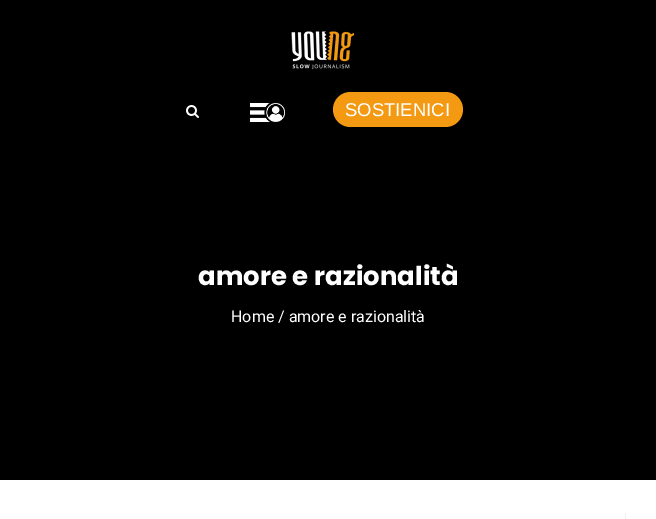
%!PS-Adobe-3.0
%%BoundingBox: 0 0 656 519
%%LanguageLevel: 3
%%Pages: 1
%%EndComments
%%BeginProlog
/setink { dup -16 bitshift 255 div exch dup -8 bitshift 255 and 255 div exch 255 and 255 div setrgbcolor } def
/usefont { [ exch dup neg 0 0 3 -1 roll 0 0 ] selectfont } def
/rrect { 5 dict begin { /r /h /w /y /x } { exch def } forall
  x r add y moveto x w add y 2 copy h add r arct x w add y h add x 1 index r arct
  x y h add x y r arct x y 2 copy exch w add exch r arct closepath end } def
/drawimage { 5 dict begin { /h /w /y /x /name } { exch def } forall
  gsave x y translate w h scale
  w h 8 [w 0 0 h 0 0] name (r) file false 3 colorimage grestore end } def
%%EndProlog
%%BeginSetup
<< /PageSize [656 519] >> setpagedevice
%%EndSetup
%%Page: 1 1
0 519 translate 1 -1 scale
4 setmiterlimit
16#FFFFFF setink
0 0 656 519 rectfill
16#000000 setink
0 0 656 480 rectfill
(img1.raw) 291 31 63 38 drawimage
(img2.raw) 186 105 13 13 drawimage
(img3.raw) 250 103 35 19 drawimage
16#F49912 setink
333 92 130 35 17.5 rrect fill
/LiberationSans-Regular 18.5 usefont
16#FFFFFF setink
345 116 moveto (SOSTIENICI) show
/Poppins-Bold 26 usefont
198 285 moveto (amore e razionalità) show
/Roboto-Regular 16 usefont
231 322 moveto (Home / amore e razionalità) show
(img4.raw) 625 513 1 6 drawimage
showpage
%%EOF
